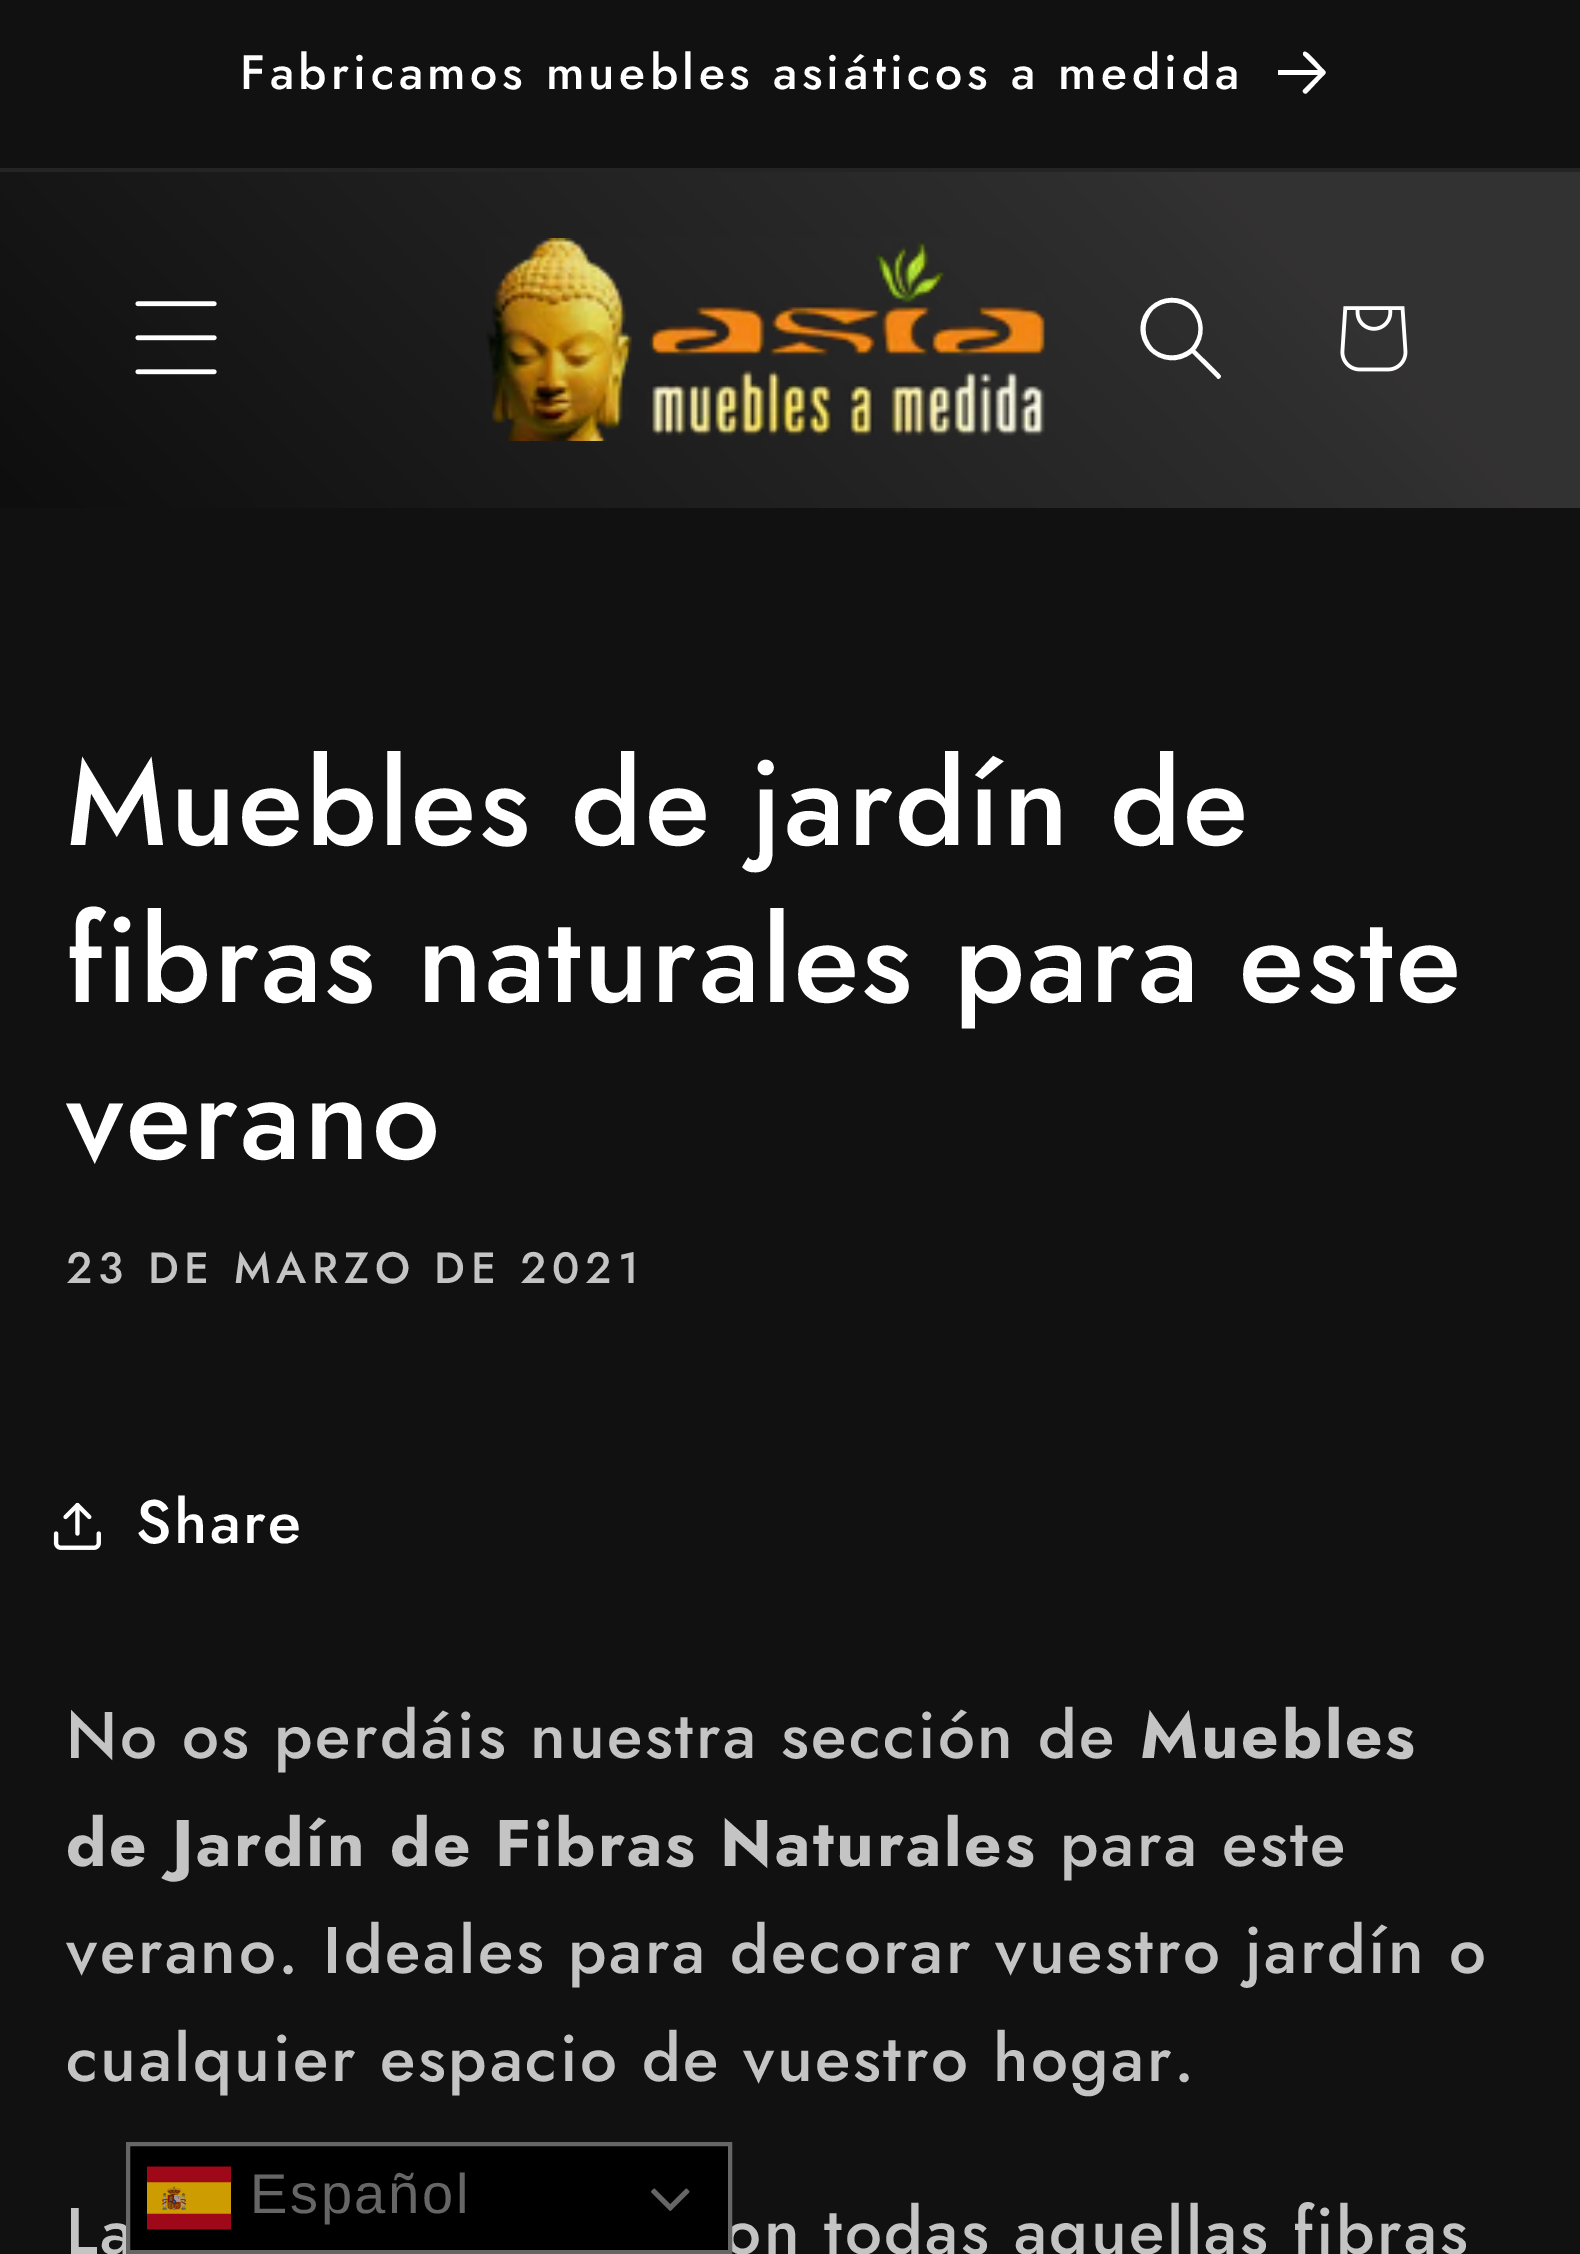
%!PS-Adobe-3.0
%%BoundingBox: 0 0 1580 2254
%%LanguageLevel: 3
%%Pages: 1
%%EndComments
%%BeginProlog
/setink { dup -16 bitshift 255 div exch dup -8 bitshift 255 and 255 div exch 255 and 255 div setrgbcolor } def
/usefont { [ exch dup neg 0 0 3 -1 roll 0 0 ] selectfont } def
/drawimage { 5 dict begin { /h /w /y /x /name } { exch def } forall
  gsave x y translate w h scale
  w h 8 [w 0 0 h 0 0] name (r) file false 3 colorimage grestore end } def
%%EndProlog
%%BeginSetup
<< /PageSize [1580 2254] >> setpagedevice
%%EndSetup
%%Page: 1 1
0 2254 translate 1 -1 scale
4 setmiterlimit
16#111111 setink
0 0 1580 2254 rectfill
16#242424 setink
0 168 1580 4 rectfill
/Jost-Medium 48.3 usefont
16#FFFFFF setink
240 89 moveto 4.4 0 (Fabricamos muebles asiáticos a medida) ashow
gsave
1278 49 66 49 rectclip
1303 53 moveto 1305 48 1312 58 1313 58 curveto 1322 68 lineto 1327 73 1327 72 1322 77 curveto 1307 93 lineto 1305 95 1302 92 1303 90 curveto 1318 75 lineto 1276 75 lineto 1271 75 1264 76 1265 72 curveto 1267 70 lineto 1318 70 lineto 1303 55 lineto 1303 55 1303 54 1303 53 curveto eofill
grestore
gsave 0 172 moveto 1580 172 lineto 1580 508 lineto 0 508 lineto closepath clip newpath
<< /ShadingType 2 /ColorSpace /DeviceRGB /Coords [-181 2066 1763 188] /Extend [true true] /Function << /FunctionType 3 /Domain [0 1] /Functions [<< /FunctionType 2 /Domain [0 1] /C0 [0 0 0] /C1 [0 0 0] /N 1 >> << /FunctionType 2 /Domain [0 1] /C0 [0 0 0] /C1 [0.2 0.196 0.196] /N 1 >> << /FunctionType 2 /Domain [0 1] /C0 [0.2 0.196 0.196] /C1 [0.2 0.196 0.196] /N 1 >>] /Bounds [0.29 0.86] /Encode [0 1 0 1 0 1] >> >> shfill grestore
(img1.raw) 135 301 82 74 drawimage
(img2.raw) 486 238 559 203 drawimage
1191 348 moveto 1180 358 1163 358 1153 348 curveto 1143 337 1143 321 1153 310 curveto 1163 300 1180 300 1191 310 curveto 1201 321 1201 337 1191 348 curveto 1192 353 moveto 1179 364 1160 362 1149 350 curveto 1137 337 1138 318 1150 307 curveto 1162 295 1181 295 1193 306 curveto 1205 318 1206 337 1195 350 curveto 1198 353 1220 374 1221 376 curveto 1221 378 1218 380 1217 378 curveto closepath eofill
(img3.raw) 1340 306 68 66 drawimage
/Jost-Medium 120.75 usefont
66 845 moveto 2.4 0 (Muebles de jardín de) ashow
66 1002 moveto 2.4 0 (fibras naturales para este) ashow
66 1159 moveto 2.4 0 (verano) ashow
/Jost-Medium 43.75 usefont
16#C4C4C4 setink
66 1283 moveto 5.7 0 (23 DE MARZO DE 2021) ashow
(img4.raw) 53 1502 48 48 drawimage
/Jost-Medium 61 usefont
16#FFFFFF setink
136 1543 moveto 2.6 0 (Share) ashow
/Jost-Medium 65.6 usefont
16#C4C4C4 setink
66 1758 moveto 2.6 0 (No os perdáis nuestra sección de) ashow
/Jost-Bold 65.6 usefont
1140 1758 moveto 2.6 0 (Muebles) ashow
66 1866 moveto 2.6 0 (de Jardín de Fibras Naturales) ashow
/Jost-Medium 65.6 usefont
1060 1866 moveto 2.6 0 (para este) ashow
66 1973 moveto 2.6 0 (verano. Ideales para decorar vuestro jardín o) ashow
66 2081 moveto 2.6 0 (cualquier espacio de vuestro hogar.) ashow
66 2254 moveto 2.6 0 (La) ashow
724 2254 moveto 2.6 0 (on todas aquellas fibras) ashow
16#000000 setink
128 2144 moveto 730 2144 lineto 730 2252 lineto 128 2252 lineto closepath gsave fill grestore
16#666666 setink
4 setlinewidth
stroke
(img5.raw) 147 2166 84 64 drawimage
/LiberationSans-Regular 56 usefont
250 2213 moveto 2.6 0 (Español) ashow
(img6.raw) 651 2188 39 23 drawimage
showpage
%%EOF
